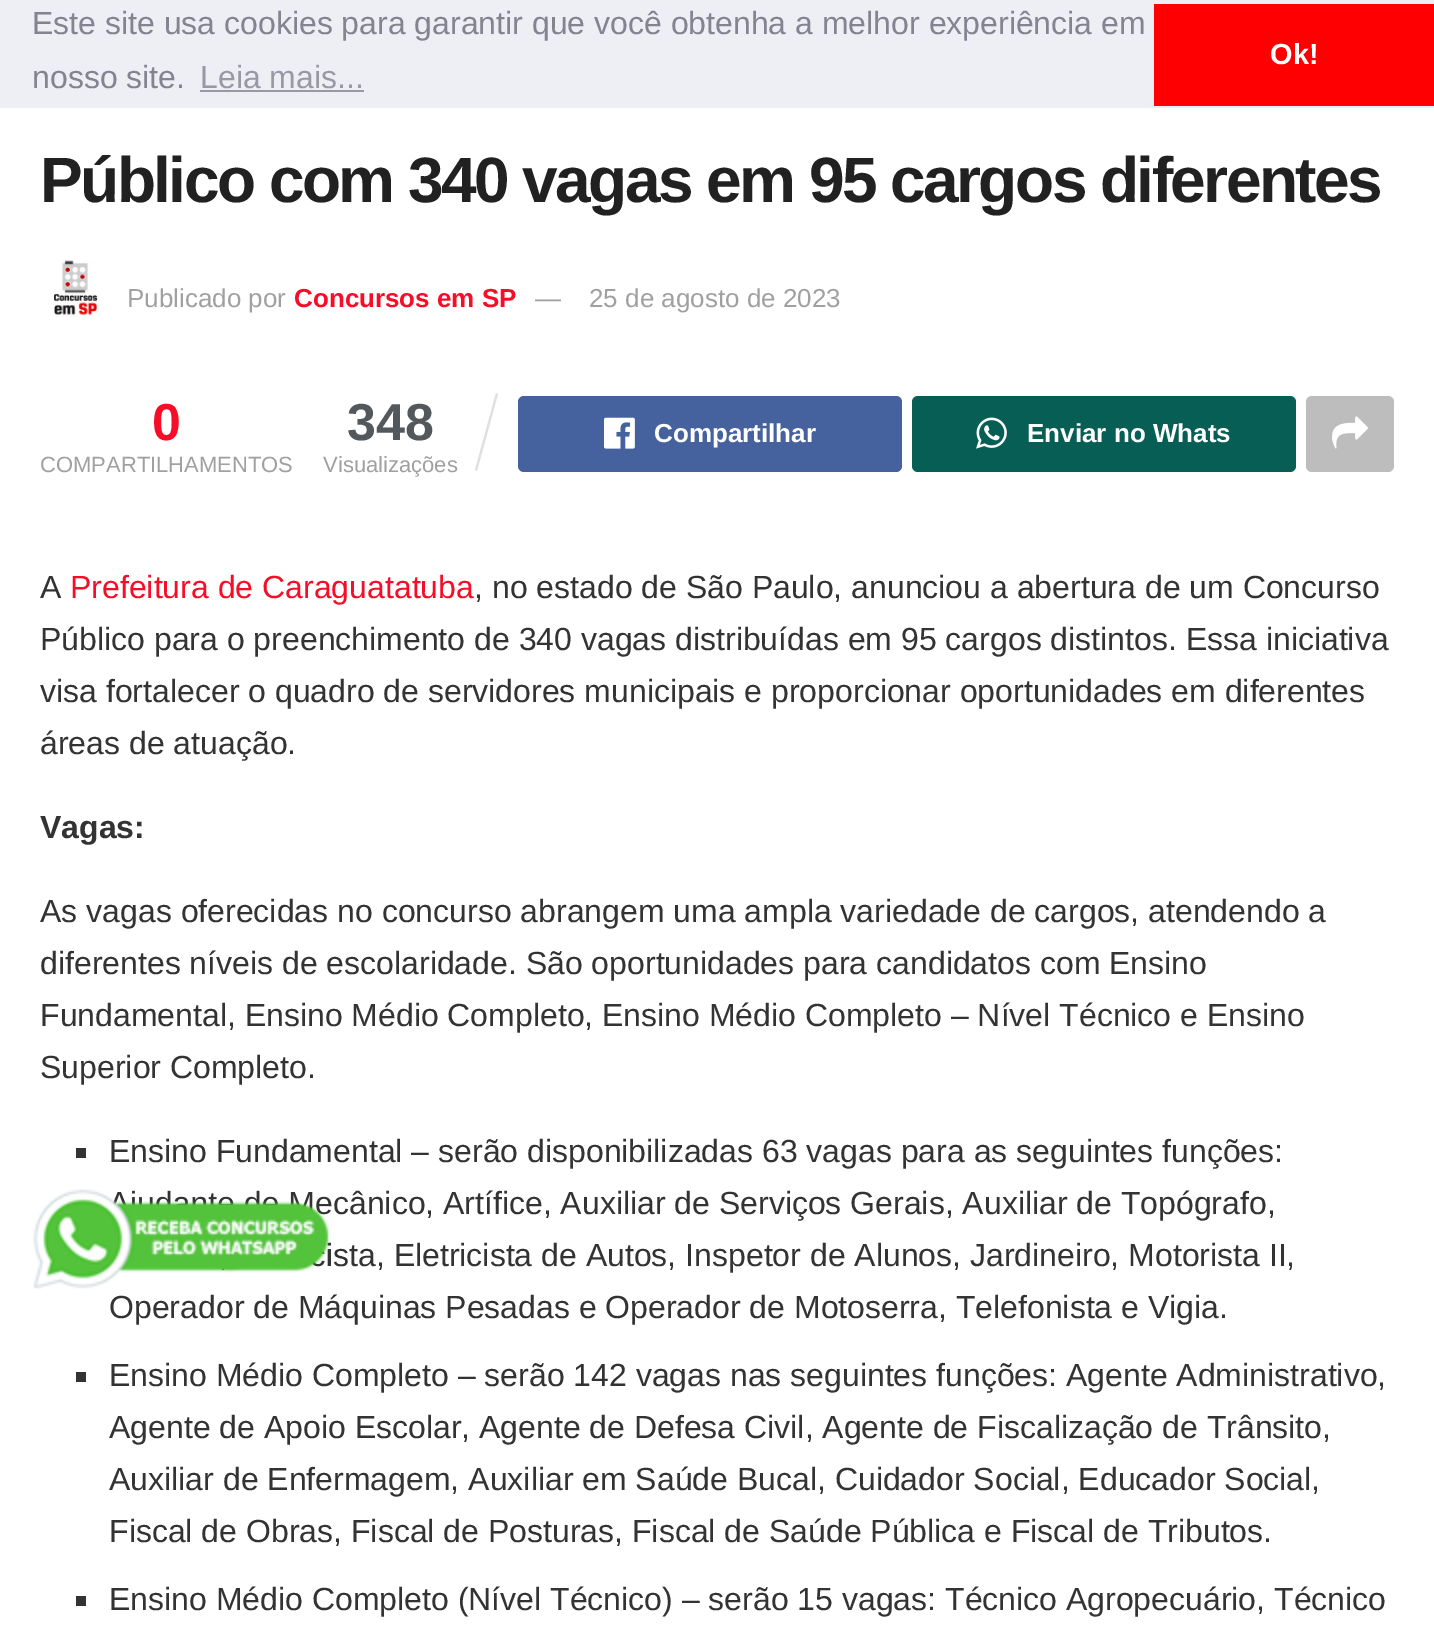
%!PS-Adobe-3.0
%%BoundingBox: 0 0 1434 1625
%%LanguageLevel: 3
%%Pages: 1
%%EndComments
%%BeginProlog
/setink { dup -16 bitshift 255 div exch dup -8 bitshift 255 and 255 div exch 255 and 255 div setrgbcolor } def
/usefont { [ exch dup neg 0 0 3 -1 roll 0 0 ] selectfont } def
/rrect { 5 dict begin { /r /h /w /y /x } { exch def } forall
  x r add y moveto x w add y 2 copy h add r arct x w add y h add x 1 index r arct
  x y h add x y r arct x y 2 copy exch w add exch r arct closepath end } def
/drawimage { 5 dict begin { /h /w /y /x /name } { exch def } forall
  gsave x y translate w h scale
  w h 8 [w 0 0 h 0 0] name (r) file false 3 colorimage grestore end } def
%%EndProlog
%%BeginSetup
<< /PageSize [1434 1625] >> setpagedevice
%%EndSetup
%%Page: 1 1
0 1625 translate 1 -1 scale
4 setmiterlimit
16#FFFFFF setink
0 0 1434 1625 rectfill
16#EDEFF5 setink
0 0 1434 108 rectfill
/LiberationSans-Regular 32 usefont
16#838391 setink
32 34 moveto (Este site usa cookies para garantir que você obtenha a melhor experiência em) show
32 88 moveto (nosso site.) show
16#9899A5 setink
200 88 moveto (Leia mais...) show
200 90 164 2 rectfill
16#FE0002 setink
1154 4 280 102 rectfill
/LiberationSans-Bold 29 usefont
16#FFFFFF setink
1270 64 moveto (Ok!) show
/LiberationSans-Bold 64 usefont
16#212121 setink
40 202 moveto -2.55 0 (Público com 340 vagas em 95 cargos diferentes) ashow
(img1.raw) 53 260 47 60 drawimage
/LiberationSans-Regular 26 usefont
16#A0A0A0 setink
127 307 moveto (Publicado por) show
/LiberationSans-Bold 26 usefont
16#F70D28 setink
294 307 moveto (Concursos em SP) show
/LiberationSans-Regular 26 usefont
16#A0A0A0 setink
535 307 moveto (—) show
589 307 moveto (25 de agosto de 2023) show
/LiberationSans-Bold 52 usefont
16#F70D28 setink
152 440 moveto (0) show
/LiberationSans-Regular 22 usefont
16#A0A0A0 setink
40 472 moveto (COMPARTILHAMENTOS) show
/LiberationSans-Bold 52 usefont
16#53585C setink
347 440 moveto (348) show
16#E0E0E0 setink
496 393 moveto 498 394 lineto 477 471 lineto 475 470 lineto closepath fill
/LiberationSans-Regular 22 usefont
16#A0A0A0 setink
323 472 moveto (Visualizações) show
16#45629F setink
518 396 384 76 6 rrect fill
(img2.raw) 604 417 31 32 drawimage
/LiberationSans-Bold 26 usefont
16#FFFFFF setink
654 442 moveto (Compartilhar) show
16#075E54 setink
912 396 384 76 6 rrect fill
(img3.raw) 976 417 31 32 drawimage
16#FFFFFF setink
1027 442 moveto (Enviar no Whats) show
16#BDBDBD setink
1306 396 88 76 6 rrect fill
(img4.raw) 1332 416 36 33 drawimage
/LiberationSans-Regular 32 usefont
16#333333 setink
40 598 moveto (A) show
16#F70D28 setink
70 598 moveto (Prefeitura de Caraguatatuba) show
16#333333 setink
[
    [(, no estado de São Paulo, anunciou a abertura de um Concurso) 474 598]
    [(Público para o preenchimento de 340 vagas distribuídas em 95 cargos distintos. Essa iniciativa) 40 650]
    [(visa fortalecer o quadro de servidores municipais e proporcionar oportunidades em diferentes) 40 702]
    [(áreas de atuação.) 40 754]
] { aload pop moveto show } forall
/LiberationSans-Bold 32 usefont
40 838 moveto (Vagas:) show
/LiberationSans-Regular 32 usefont
[
    [(As vagas oferecidas no concurso abrangem uma ampla variedade de cargos, atendendo a) 40 922]
    [(diferentes níveis de escolaridade. São oportunidades para candidatos com Ensino) 40 974]
    [(Fundamental, Ensino Médio Completo, Ensino Médio Completo – Nível Técnico e Ensino) 40 1026]
    [(Superior Completo.) 40 1078]
] { aload pop moveto show } forall
76 1148 10 10 rectfill
[
    [(Ensino Fundamental – serão disponibilizadas 63 vagas para as seguintes funções:) 109 1162]
    [(ecânico, Artífice, Auxiliar de Serviços Gerais, Auxiliar de Topógrafo,) 315 1214]
    [(ista, Eletricista de Autos, Inspetor de Alunos, Jardineiro, Motorista II,) 326 1266]
    [(Operador de Máquinas Pesadas e Operador de Motoserra, Telefonista e Vigia.) 109 1318]
] { aload pop moveto show } forall
76 1372 10 10 rectfill
[
    [(Ensino Médio Completo – serão 142 vagas nas seguintes funções: Agente Administrativo,) 109 1386]
    [(Agente de Apoio Escolar, Agente de Defesa Civil, Agente de Fiscalização de Trânsito,) 109 1438]
    [(Auxiliar de Enfermagem, Auxiliar em Saúde Bucal, Cuidador Social, Educador Social,) 109 1490]
    [(Fiscal de Obras, Fiscal de Posturas, Fiscal de Saúde Pública e Fiscal de Tributos.) 109 1542]
] { aload pop moveto show } forall
76 1596 10 10 rectfill
109 1610 moveto (Ensino Médio Completo \(Nível Técnico\) – serão 15 vagas: Técnico Agropecuário, Técnico) show
(img5.raw) 33 1189 296 100 drawimage
showpage
%%EOF
